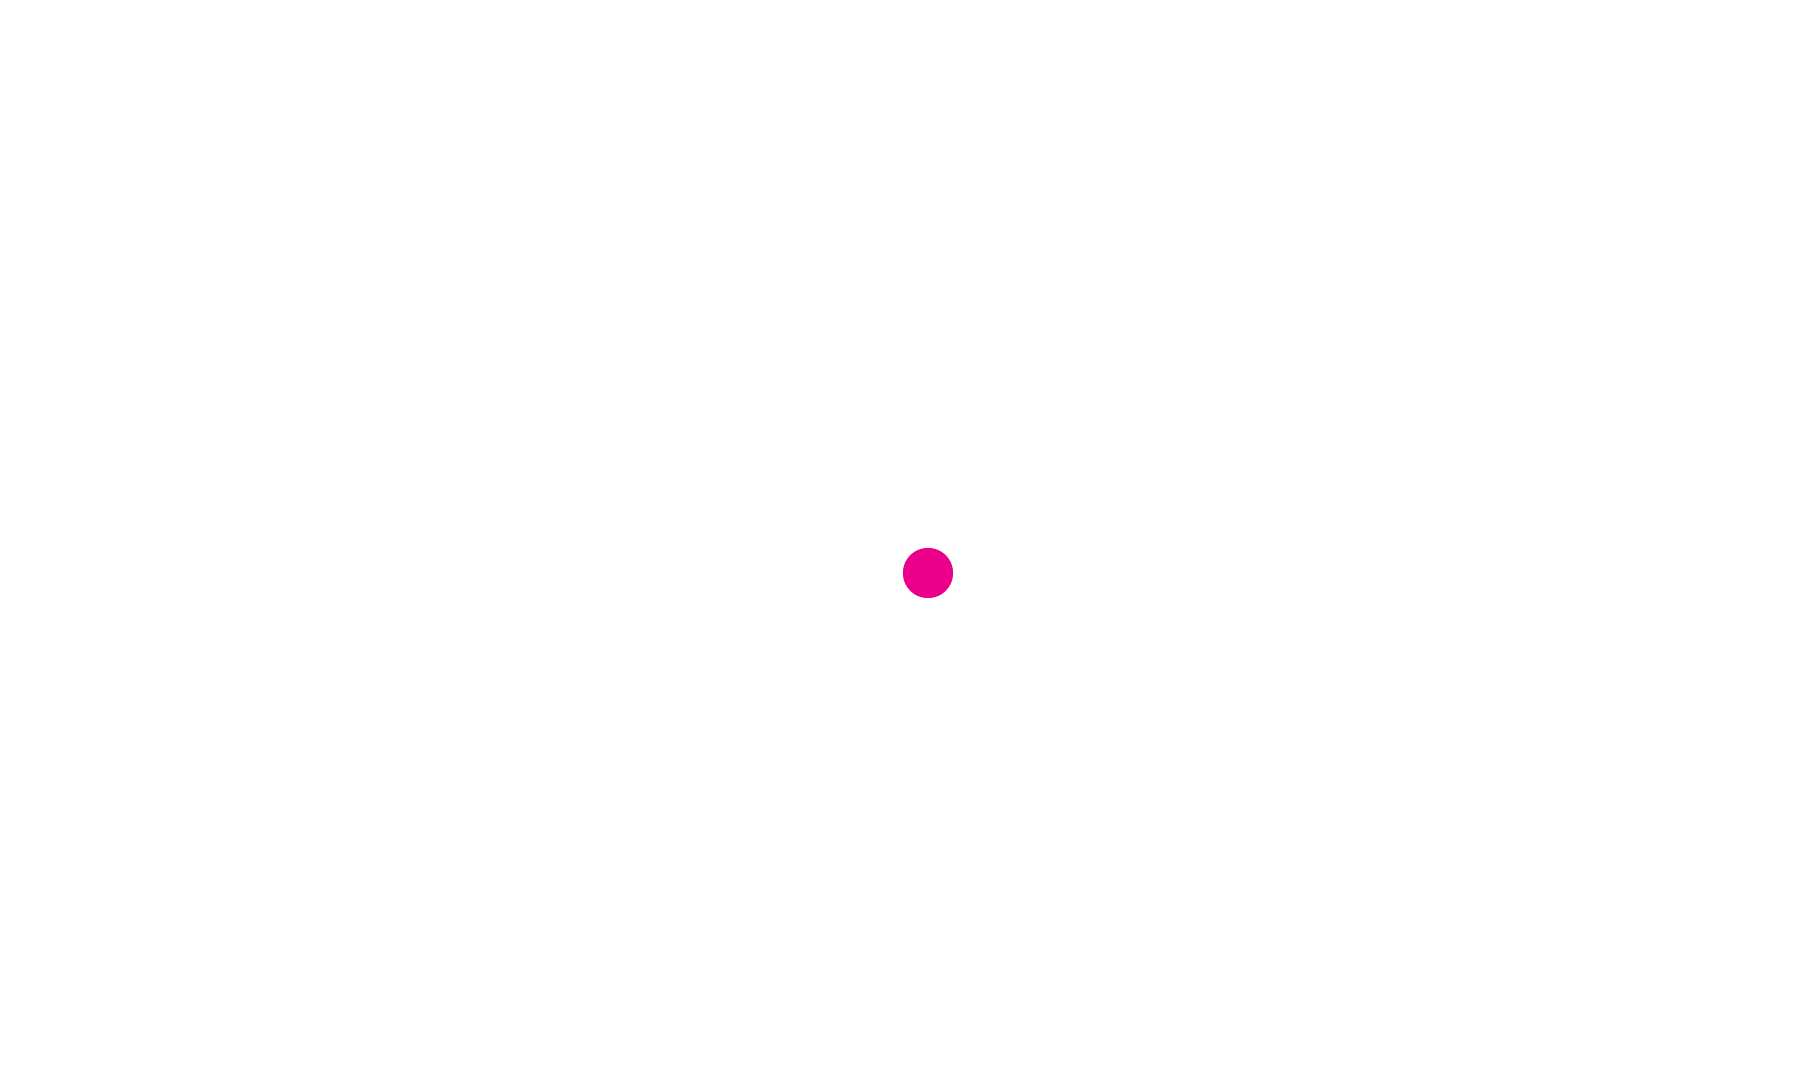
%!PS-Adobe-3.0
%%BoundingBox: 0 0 1806 1069
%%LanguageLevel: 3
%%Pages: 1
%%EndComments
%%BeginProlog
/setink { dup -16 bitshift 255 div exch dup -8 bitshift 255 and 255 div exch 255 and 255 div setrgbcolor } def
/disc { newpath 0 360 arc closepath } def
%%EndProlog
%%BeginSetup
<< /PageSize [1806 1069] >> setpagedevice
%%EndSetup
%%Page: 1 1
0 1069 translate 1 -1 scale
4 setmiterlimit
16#FFFFFF setink
0 0 1806 1069 rectfill
16#EB008B setink
928 573 25 disc fill
showpage
%%EOF
